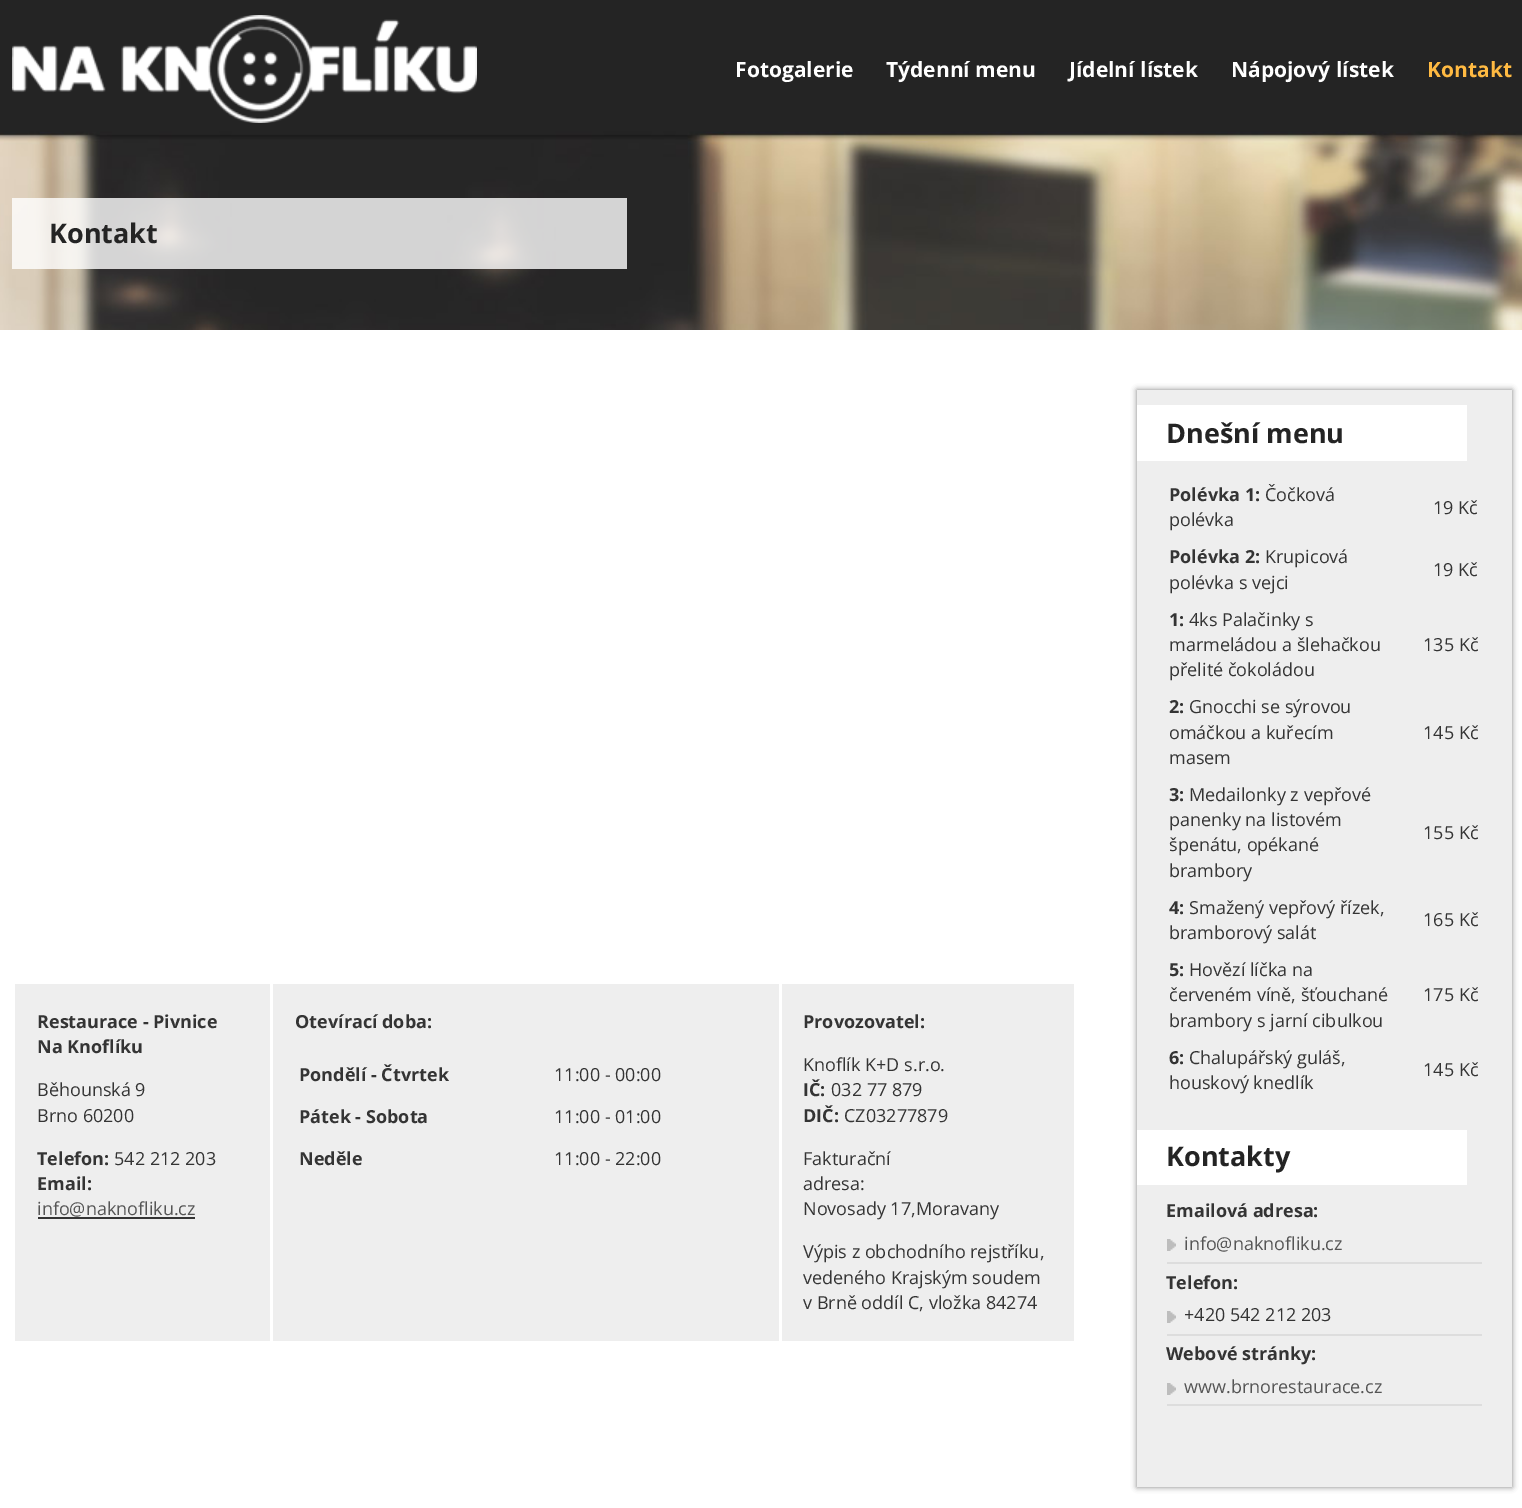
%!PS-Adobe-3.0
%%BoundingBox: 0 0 1522 1508
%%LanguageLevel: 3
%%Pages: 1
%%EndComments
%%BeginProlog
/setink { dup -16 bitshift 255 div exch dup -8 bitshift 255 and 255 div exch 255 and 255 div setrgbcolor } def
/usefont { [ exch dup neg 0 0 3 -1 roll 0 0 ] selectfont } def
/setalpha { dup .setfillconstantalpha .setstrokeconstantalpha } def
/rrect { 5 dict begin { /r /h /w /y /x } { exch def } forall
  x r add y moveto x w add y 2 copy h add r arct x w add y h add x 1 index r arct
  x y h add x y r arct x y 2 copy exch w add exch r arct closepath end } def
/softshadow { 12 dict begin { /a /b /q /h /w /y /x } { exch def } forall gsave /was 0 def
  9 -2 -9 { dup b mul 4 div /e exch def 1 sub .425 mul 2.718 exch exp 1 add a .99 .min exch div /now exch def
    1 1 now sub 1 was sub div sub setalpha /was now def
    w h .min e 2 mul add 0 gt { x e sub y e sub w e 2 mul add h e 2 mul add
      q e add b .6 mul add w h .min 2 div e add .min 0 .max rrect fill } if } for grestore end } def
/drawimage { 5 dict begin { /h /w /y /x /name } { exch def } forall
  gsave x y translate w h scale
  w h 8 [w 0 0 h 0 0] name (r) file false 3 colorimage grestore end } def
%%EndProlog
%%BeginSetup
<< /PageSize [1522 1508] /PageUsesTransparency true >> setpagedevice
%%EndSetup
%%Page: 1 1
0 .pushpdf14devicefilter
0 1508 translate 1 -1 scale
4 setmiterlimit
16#FFFFFF setink
0 0 1522 1508 rectfill
(img1.raw) 0 0 1522 330 drawimage
(img2.raw) 12 15 465 108 drawimage
/OpenSans-Bold 21 usefont
[
    [(Fotogalerie) 735 77]
    [(Týdenní menu) 886 77]
    [(Jídelní lístek) 1069 77]
    [(Nápojový lístek) 1231 77]
] { aload pop moveto show } forall
16#FFBA42 setink
1427 77 moveto (Kontakt) show
0.8 setalpha
16#FFFFFF setink
12 198 615 71 rectfill
/OpenSans-Bold 27 usefont
1 setalpha
16#242424 setink
49 243 moveto (Kontakt) show
16#EEEEEE setink
15 984 255 357 rectfill
/OpenSans-Bold 18 usefont
16#343434 setink
37 1028 moveto (Restaurace - Pivnice) show
37 1053 moveto (Na Knoflíku) show
/OpenSans-Regular 18 usefont
37 1096 moveto (Běhounská 9) show
37 1122 moveto (Brno 60200) show
/OpenSans-Bold 18 usefont
37 1165 moveto (Telefon:) show
/OpenSans-Regular 18 usefont
114 1165 moveto (542 212 203) show
/OpenSans-Bold 18 usefont
37 1190 moveto (Email:) show
/OpenSans-Regular 18 usefont
16#555555 setink
37 1215 moveto (info@naknofliku.cz) show
16#343434 setink
38 1217 157 2 rectfill
16#EEEEEE setink
273 984 506 357 rectfill
/OpenSans-Bold 18 usefont
16#343434 setink
295 1028 moveto (Otevírací doba:) show
299 1081 moveto (Pondělí - Čtvrtek) show
/OpenSans-Regular 18 usefont
554 1081 moveto (11:00 - 00:00) show
/OpenSans-Bold 18 usefont
299 1123 moveto (Pátek - Sobota) show
/OpenSans-Regular 18 usefont
554 1123 moveto (11:00 - 01:00) show
/OpenSans-Bold 18 usefont
299 1165 moveto (Neděle) show
/OpenSans-Regular 18 usefont
554 1165 moveto (11:00 - 22:00) show
16#EEEEEE setink
782 984 292 357 rectfill
/OpenSans-Bold 18 usefont
16#343434 setink
803 1028 moveto (Provozovatel:) show
/OpenSans-Regular 18 usefont
803 1071 moveto (Knoflík K+D s.r.o.) show
/OpenSans-Bold 18 usefont
803 1096 moveto (IČ:) show
/OpenSans-Regular 18 usefont
831 1096 moveto (032 77 879) show
/OpenSans-Bold 18 usefont
803 1122 moveto (DIČ:) show
/OpenSans-Regular 18 usefont
[
    [(CZ03277879) 844 1122]
    [(Fakturační) 803 1165]
    [(adresa:) 803 1190]
    [(Novosady 17,Moravany) 803 1215]
    [(Výpis z obchodního rejstříku,) 803 1258]
    [(vedeného Krajským soudem) 803 1284]
    [(v Brně oddíl C, vložka 84274) 803 1309]
] { aload pop moveto show } forall
16#000000 setink
1137 390 375 1097 0 3 0.5 softshadow
16#EEEEEE setink
1137 390 375 1097 rectfill
16#FFFFFF setink
1137 405 330 56 rectfill
/OpenSans-Bold 27 usefont
16#242424 setink
1166 443 moveto (Dnešní menu) show
/OpenSans-Bold 18 usefont
16#343434 setink
1169 501 moveto (Polévka 1:) show
/OpenSans-Regular 18 usefont
[
    [(Čočková) 1265 501]
    [(polévka) 1169 526]
    [(19 Kč) 1433 514]
] { aload pop moveto show } forall
/OpenSans-Bold 18 usefont
1169 563 moveto (Polévka 2:) show
/OpenSans-Regular 18 usefont
[
    [(Krupicová) 1265 563]
    [(polévka s vejci) 1169 589]
    [(19 Kč) 1433 576]
] { aload pop moveto show } forall
/OpenSans-Bold 18 usefont
1169 626 moveto (1:) show
/OpenSans-Regular 18 usefont
[
    [(4ks Palačinky s) 1189 626]
    [(marmeládou a šlehačkou) 1169 651]
    [(přelité čokoládou) 1169 676]
    [(135 Kč) 1423 651]
] { aload pop moveto show } forall
/OpenSans-Bold 18 usefont
1169 713 moveto (2:) show
/OpenSans-Regular 18 usefont
[
    [(Gnocchi se sýrovou) 1189 713]
    [(omáčkou a kuřecím) 1169 739]
    [(masem) 1169 764]
    [(145 Kč) 1423 739]
] { aload pop moveto show } forall
/OpenSans-Bold 18 usefont
1169 801 moveto (3:) show
/OpenSans-Regular 18 usefont
[
    [(Medailonky z vepřové) 1189 801]
    [(panenky na listovém) 1169 826]
    [(špenátu, opékané) 1169 851]
    [(brambory) 1169 877]
    [(155 Kč) 1423 839]
] { aload pop moveto show } forall
/OpenSans-Bold 18 usefont
1169 914 moveto (4:) show
/OpenSans-Regular 18 usefont
[
    [(Smažený vepřový řízek,) 1189 914]
    [(bramborový salát) 1169 939]
    [(165 Kč) 1423 926]
] { aload pop moveto show } forall
/OpenSans-Bold 18 usefont
1169 976 moveto (5:) show
/OpenSans-Regular 18 usefont
[
    [(Hovězí líčka na) 1189 976]
    [(červeném víně, šťouchané) 1169 1001]
    [(brambory s jarní cibulkou) 1169 1027]
    [(175 Kč) 1423 1001]
] { aload pop moveto show } forall
/OpenSans-Bold 18 usefont
1169 1064 moveto (6:) show
/OpenSans-Regular 18 usefont
[
    [(Chalupářský guláš,) 1189 1064]
    [(houskový knedlík) 1169 1089]
    [(145 Kč) 1423 1076]
] { aload pop moveto show } forall
16#FFFFFF setink
1137 1130 330 55 rectfill
/OpenSans-Bold 27 usefont
16#242424 setink
1166 1166 moveto (Kontakty) show
/OpenSans-Bold 18 usefont
16#343434 setink
1166 1217 moveto (Emailová adresa:) show
(img3.raw) 1167 1239 9 12 drawimage
16#DDDDDD setink
1167 1262 315 2 rectfill
/OpenSans-Regular 18 usefont
16#555555 setink
1184 1250 moveto (info@naknofliku.cz) show
/OpenSans-Bold 18 usefont
16#343434 setink
1166 1289 moveto (Telefon:) show
(img3.raw) 1167 1311 9 12 drawimage
16#DDDDDD setink
1167 1334 315 2 rectfill
/OpenSans-Regular 18 usefont
16#343434 setink
1184 1321 moveto (+420 542 212 203) show
/OpenSans-Bold 18 usefont
1166 1360 moveto (Webové stránky:) show
(img3.raw) 1167 1383 9 12 drawimage
16#DDDDDD setink
1167 1404 315 2 rectfill
/OpenSans-Regular 18 usefont
16#555555 setink
1184 1393 moveto (www.brnorestaurace.cz) show
.poppdf14devicefilter showpage
%%EOF
